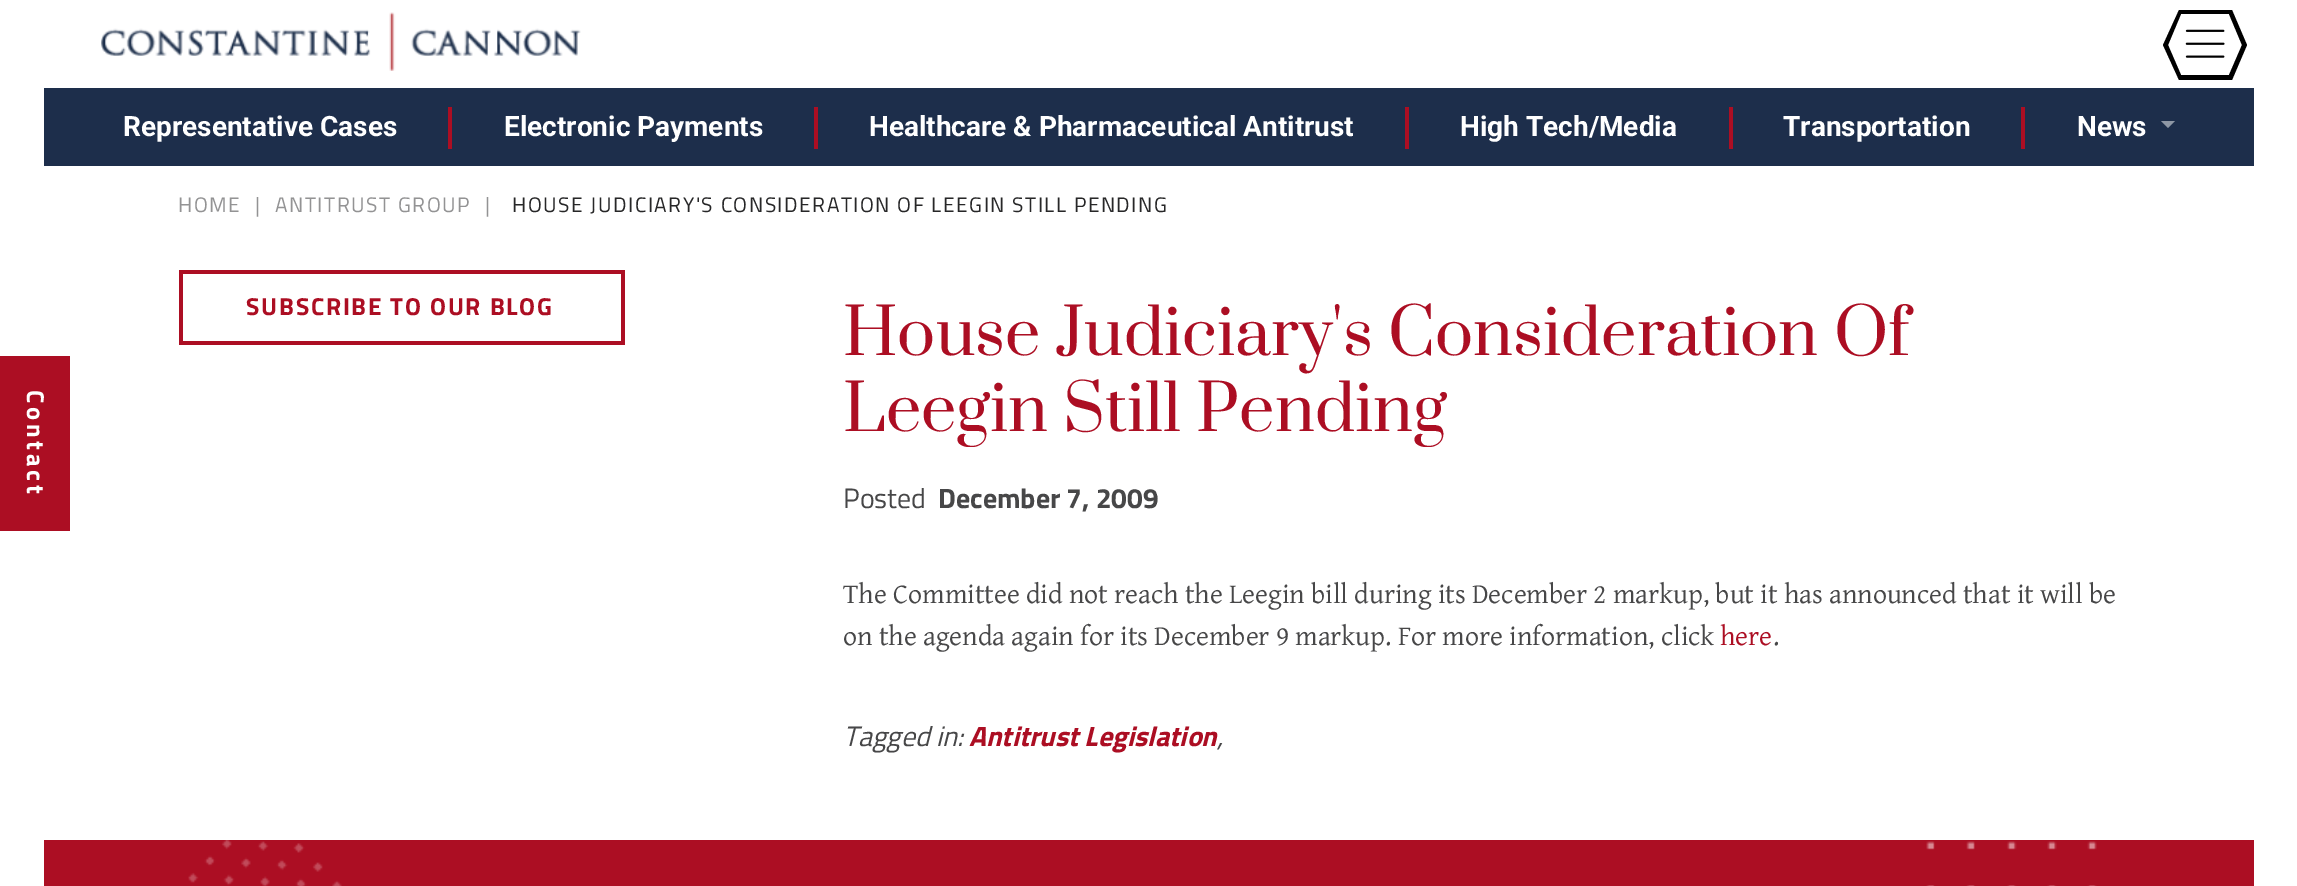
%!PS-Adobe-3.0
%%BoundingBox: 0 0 2297 886
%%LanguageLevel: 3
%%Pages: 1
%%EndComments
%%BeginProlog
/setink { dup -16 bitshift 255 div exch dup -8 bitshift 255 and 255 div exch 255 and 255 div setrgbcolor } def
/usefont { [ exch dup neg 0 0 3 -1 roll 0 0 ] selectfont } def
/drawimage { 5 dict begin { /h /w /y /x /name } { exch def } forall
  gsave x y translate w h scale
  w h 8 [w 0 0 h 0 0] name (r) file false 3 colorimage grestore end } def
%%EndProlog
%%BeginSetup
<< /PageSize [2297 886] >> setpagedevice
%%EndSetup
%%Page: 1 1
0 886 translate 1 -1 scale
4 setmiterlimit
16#FFFFFF setink
0 0 2297 886 rectfill
(img1.raw) 101 12 480 59 drawimage
16#000000 setink
2232 80 moveto 2179 80 lineto 2163 45 lineto 2179 10 lineto 2232 10 lineto 2247 45 lineto closepath 2181 75 moveto 2229 75 lineto 2242 45 lineto 2229 14 lineto 2181 14 lineto 2168 45 lineto closepath fill
(img2.raw) 2185 29 40 29 drawimage
16#1D2E4B setink
44 88 2210 78 rectfill
16#AC0E23 setink
448 107 4 42 rectfill
/Roboto-Bold 28 usefont
16#FFFFFF setink
123 136 moveto (Representative Cases) show
16#AC0E23 setink
814 107 4 42 rectfill
16#FFFFFF setink
504 136 moveto (Electronic Payments) show
16#AC0E23 setink
1405 107 4 42 rectfill
16#FFFFFF setink
869 136 moveto (Healthcare & Pharmaceutical Antitrust) show
16#AC0E23 setink
1729 107 4 42 rectfill
16#FFFFFF setink
1460 136 moveto (High Tech/Media) show
16#AC0E23 setink
2021 107 4 42 rectfill
16#FFFFFF setink
1783 136 moveto (Transportation) show
2077 136 moveto (News) show
16#8E97A5 setink
2161 121 moveto 2175 121 lineto 2168 128 lineto closepath fill
/TitilliumWeb-Regular 21 usefont
16#939394 setink
178 212 moveto 1.52 0 (HOME) ashow
255 212 moveto 1.52 0 (|) ashow
275 212 moveto 1.52 0 (ANTITRUST GROUP) ashow
485 212 moveto 1.52 0 (|) ashow
16#272728 setink
512 212 moveto 1.52 0 (HOUSE JUDICIARY'S CONSIDERATION OF LEEGIN STILL PENDING) ashow
16#AC0E23 setink
0 356 70 175 rectfill
/TitilliumWeb-Bold 24.5 usefont
16#FFFFFF setink
gsave 27 390 translate 90 rotate 0 0 moveto 3.75 0 (Contact) ashow grestore
[
    [179 270 446 4 16#AC0E23]
    [621 270 4 75 16#AC0E23]
    [179 270 4 38 16#AC0E23]
] { aload pop setink rectfill } forall
246 315 moveto 1.75 0 (SUBSCRIBE TO OUR BLOG) ashow
179 341 446 4 rectfill
179 306 4 39 rectfill
/Prata-Regular 63 usefont
843 355 moveto (House Judiciary's Consideration Of) show
843 431 moveto (Leegin Still Pending) show
/TitilliumWeb-Regular 28 usefont
16#474748 setink
843 508 moveto (Posted) show
/TitilliumWeb-Bold 28 usefont
938 508 moveto (December 7, 2009) show
/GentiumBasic-Regular 28 usefont
843 603 moveto (The Committee did not reach the Leegin bill during its December 2 markup, but it has announced that it will be) show
843 645 moveto (on the agenda again for its December 9 markup. For more information, click) show
16#AC0E23 setink
1720 645 moveto (here) show
16#474748 setink
1773 645 moveto (.) show
/TitilliumWeb-Italic 28 usefont
843 746 moveto (Tagged in:) show
/TitilliumWeb-BoldItalic 28 usefont
16#AC0E23 setink
969 746 moveto (Antitrust Legislation) show
/TitilliumWeb-Italic 28 usefont
16#474748 setink
1217 746 moveto (,) show
16#AC0E23 setink
44 840 2210 46 rectfill
(img3.raw) 188 840 154 46 drawimage
(img4.raw) 1926 841 171 45 drawimage
showpage
%%EOF
